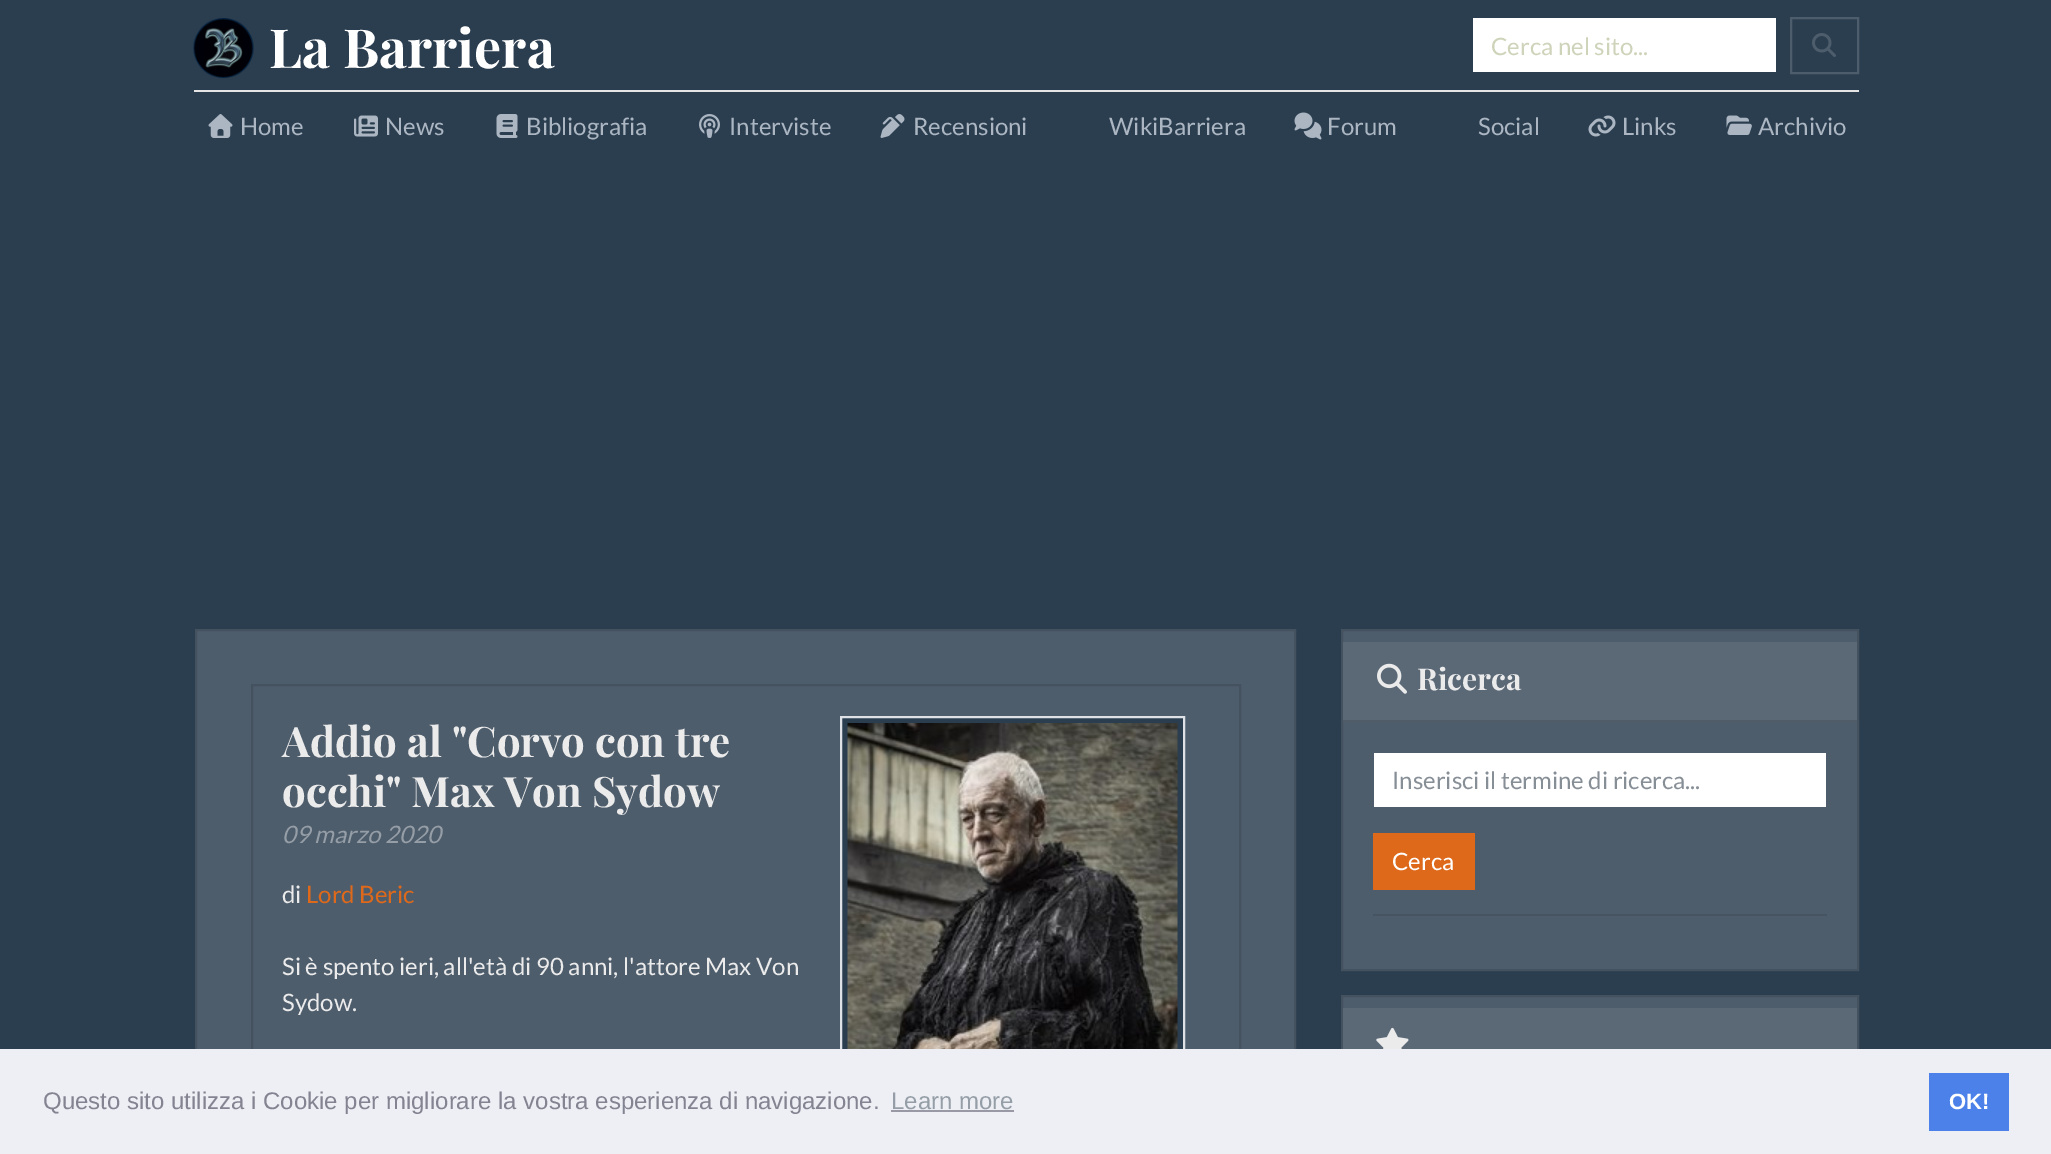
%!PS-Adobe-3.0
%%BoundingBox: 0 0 2051 1154
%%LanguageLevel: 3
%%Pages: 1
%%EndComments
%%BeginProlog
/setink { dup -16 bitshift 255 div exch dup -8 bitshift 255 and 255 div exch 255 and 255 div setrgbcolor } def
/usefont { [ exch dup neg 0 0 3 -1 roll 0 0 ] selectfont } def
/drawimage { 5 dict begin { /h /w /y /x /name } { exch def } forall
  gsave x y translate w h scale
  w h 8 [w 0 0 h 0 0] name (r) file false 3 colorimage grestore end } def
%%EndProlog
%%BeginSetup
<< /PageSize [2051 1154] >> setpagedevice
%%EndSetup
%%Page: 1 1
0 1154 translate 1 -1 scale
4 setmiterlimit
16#2B3E50 setink
0 0 2051 1154 rectfill
16#E5E5E5 setink
194 90 1665 2 rectfill
(img1.raw) 193 18 61 60 drawimage
/PlayfairDisplay-Bold 54 usefont
16#FFFFFF setink
269 68 moveto (La Barriera) show
1473 18 303 54 rectfill
/Lato-Regular 24 usefont
16#CED4BA setink
1491 55 moveto (Cerca nel sito...) show
16#4E5D6C setink
2 setlinewidth
1791 18 67 55 rectstroke
(img2.raw) 1812 33 24 24 drawimage
(img3.raw) 208 114 25 24 drawimage
16#ABB6C2 setink
240 135 moveto (Home) show
(img4.raw) 354 115 24 22 drawimage
385 135 moveto (News) show
(img5.raw) 496 114 22 24 drawimage
526 135 moveto (Bibliografia) show
(img6.raw) 699 114 21 24 drawimage
729 135 moveto (Interviste) show
(img7.raw) 880 114 25 24 drawimage
913 135 moveto (Recensioni) show
1109 135 moveto (WikiBarriera) show
(img8.raw) 1294 112 28 28 drawimage
1327 135 moveto (Forum) show
1478 135 moveto (Social) show
(img9.raw) 1588 115 28 22 drawimage
1622 135 moveto (Links) show
(img10.raw) 1726 115 26 20 drawimage
1758 135 moveto (Archivio) show
16#4E5D6C setink
197 631 1097 418 rectfill
16#44515F setink
196 630 1099 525 rectstroke
16#44515E setink
252 685 988 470 rectstroke
/PlayfairDisplay-Bold 42 usefont
16#EBEBEB setink
282 757 moveto (Addio al "Corvo con tre) show
282 807 moveto (occhi" Max Von Sydow) show
16#2B3E50 setink
842 718 341 331 rectfill
16#DEE2E6 setink
841 717 343 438 rectstroke
(img11.raw) 847 723 331 326 drawimage
/Lato-Italic 24 usefont
16#959EA7 setink
282 843 moveto (09 marzo 2020) show
/Lato-Regular 24 usefont
16#EBEBEB setink
282 903 moveto (di) show
16#DF691A setink
306 903 moveto (Lord Beric) show
16#EBEBEB setink
282 975 moveto (Si è spento ieri, all'età di 90 anni, l'attore Max Von) show
282 1011 moveto (Sydow.) show
16#4E5D6C setink
1342 630 moveto 1858 630 lineto 1858 970 lineto 1342 970 lineto closepath gsave fill grestore
16#44515F setink
stroke
16#5B6977 setink
1343 642 514 78 rectfill
16#505C68 setink
1343 720 514 2 rectfill
(img12.raw) 1377 663 30 31 drawimage
/PlayfairDisplay-Bold 30 usefont
16#EBEBEB setink
1417 690 moveto (Ricerca) show
16#FFFFFF setink
1374 753 452 54 rectfill
/Lato-Regular 24 usefont
16#868E96 setink
1392 789 moveto (Inserisci il termine di ricerca...) show
16#DF691A setink
1373 833 102 57 rectfill
16#FFFFFF setink
1392 870 moveto (Cerca) show
16#465461 setink
1373 914 454 2 rectfill
16#4E5D6C setink
1343 997 514 11 rectfill
16#44515F setink
1342 996 516 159 rectstroke
16#5B6977 setink
1343 1008 514 41 rectfill
(img13.raw) 1376 1027 33 22 drawimage
16#EDEFF5 setink
0 1049 2051 105 rectfill
/LiberationSans-Regular 24 usefont
16#838391 setink
43 1109 moveto (Questo sito utilizza i Cookie per migliorare la vostra esperienza di navigazione.) show
16#959EA7 setink
891 1109 moveto (Learn more) show
16#9899A5 setink
891 1110 123 2 rectfill
16#4B81E8 setink
1929 1073 80 58 rectfill
/LiberationSans-Bold 22 usefont
16#FFFFFF setink
1949 1109 moveto (OK!) show
showpage
%%EOF
